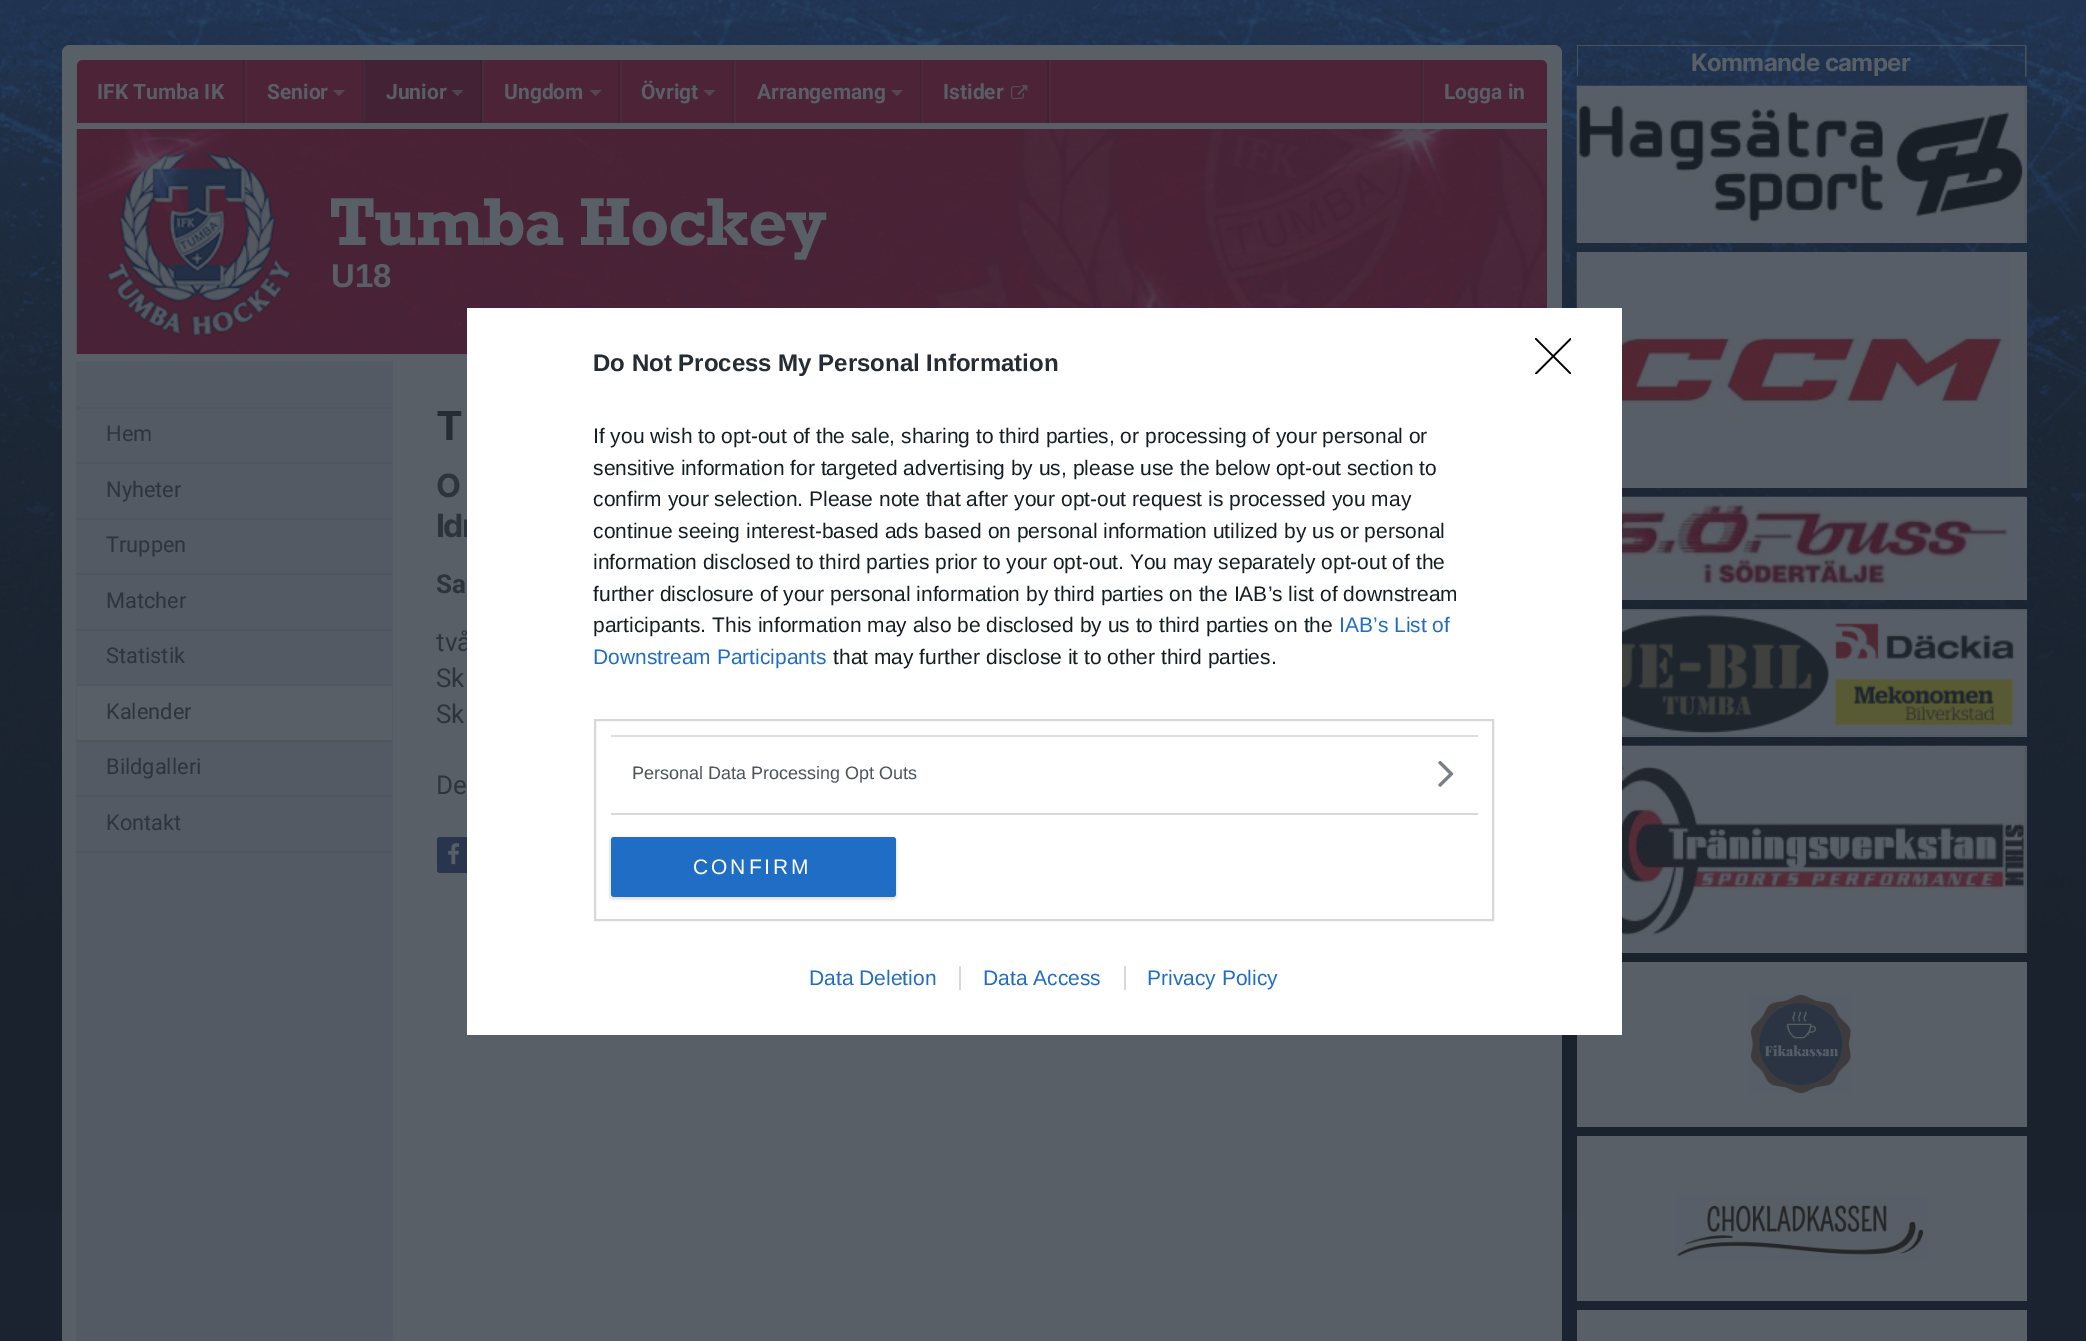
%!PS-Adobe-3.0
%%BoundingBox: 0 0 2086 1341
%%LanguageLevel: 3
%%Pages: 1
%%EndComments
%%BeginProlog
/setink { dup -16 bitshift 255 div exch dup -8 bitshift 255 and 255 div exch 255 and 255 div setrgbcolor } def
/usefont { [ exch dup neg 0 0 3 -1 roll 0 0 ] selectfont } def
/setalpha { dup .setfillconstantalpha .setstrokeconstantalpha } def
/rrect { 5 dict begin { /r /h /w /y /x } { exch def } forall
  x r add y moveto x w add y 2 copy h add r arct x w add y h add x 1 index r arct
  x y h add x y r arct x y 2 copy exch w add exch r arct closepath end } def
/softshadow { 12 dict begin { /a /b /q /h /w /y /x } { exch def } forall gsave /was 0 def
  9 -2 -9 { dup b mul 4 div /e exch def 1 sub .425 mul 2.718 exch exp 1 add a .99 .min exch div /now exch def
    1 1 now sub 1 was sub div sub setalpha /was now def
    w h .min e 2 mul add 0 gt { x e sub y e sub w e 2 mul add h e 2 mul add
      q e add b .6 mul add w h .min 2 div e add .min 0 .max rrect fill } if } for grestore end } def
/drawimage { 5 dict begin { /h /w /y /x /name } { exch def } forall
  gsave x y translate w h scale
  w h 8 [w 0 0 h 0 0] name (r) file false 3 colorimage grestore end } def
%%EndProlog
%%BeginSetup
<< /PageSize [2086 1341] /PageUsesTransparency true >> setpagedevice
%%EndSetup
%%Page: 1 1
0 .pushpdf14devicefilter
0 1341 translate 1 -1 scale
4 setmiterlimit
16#1A232F setink
0 0 2086 1341 rectfill
(img1.raw) 0 0 2086 1213 drawimage
0.71 setalpha
16#595F67 setink
1576 45 moveto 2026 45 lineto 2025 46 lineto 1578 46 lineto closepath fill
2026.5 45 moveto 2026.5 76.5 lineto 2025 76.5 lineto 2025 46.5 lineto closepath fill
gsave
1577 45 450 32 rectclip
1576.5 76.5 moveto 1576.5 45 lineto 1578 46.5 lineto 1578 76.5 lineto closepath fill
grestore
/Inter-Bold 24 usefont
1 setalpha
1691 71 moveto -0.6 0 (Kommande camper) ashow
2026 86 1 157 rectfill
(img2.raw) 1576 85 451 158 drawimage
1622 252 405 236 rectfill
(img3.raw) 1576 252 434 236 drawimage
2026 497 1 103 rectfill
(img4.raw) 1622 496 405 104 drawimage
1622 609 405 128 rectfill
(img5.raw) 1622 609 405 128 drawimage
1622 746 405 207 rectfill
(img6.raw) 1622 745 405 208 drawimage
1577 962 450 165 rectfill
(img7.raw) 1747 994 106 100 drawimage
1577 1136 450 165 rectfill
(img8.raw) 1675 1194 252 68 drawimage
1577 1310 450 31 rectfill
(img9.raw) 1714 1339 37 2 drawimage
70 45 moveto 1554 45 lineto 1558.5 45 1562 48.5 1562 53 curveto 1562 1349 lineto 62 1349 lineto 62 53 lineto 62 48.5 65.5 45 70 45 curveto closepath fill
16#4C2337 setink
83 60 moveto 1541 60 lineto 1544.5 60 1547 62.5 1547 66 curveto 1547 123 lineto 77 123 lineto 77 66 lineto 77 62.5 79.5 60 83 60 curveto closepath fill
16#4E293C setink
1049 60 2 63 rectfill
16#422234 setink
243 60 2 63 rectfill
/Roboto-Bold 21 usefont
16#595F67 setink
97 99 moveto (IFK Tumba IK) show
16#422234 setink
362 60 1 63 rectfill
16#4E293C setink
245 60 2 63 rectfill
16#595F67 setink
267 99 moveto (Senior) show
16#544754 setink
333 90 moveto 345 90 lineto 339 96 lineto closepath fill
[
    [365 60 115 63 16#422234]
    [480 60 2 63 16#3A2132]
    [363 60 2 63 16#442839]
] { aload pop setink rectfill } forall
16#595F67 setink
386 99 moveto (Junior) show
16#504653 setink
451.5 90 moveto 463.5 90 lineto 457.5 96 lineto closepath fill
16#422234 setink
618 60 2 63 rectfill
16#4E293C setink
482 60 2 63 rectfill
16#595F67 setink
504 99 moveto (Ungdom) show
16#544754 setink
589.5 90 moveto 601.5 90 lineto 595.5 96 lineto closepath fill
16#422234 setink
732 60 2 63 rectfill
16#4E293C setink
620 60 2 63 rectfill
16#595F67 setink
641 99 moveto (Övrigt) show
16#544754 setink
703.5 90 moveto 715.5 90 lineto 709.5 96 lineto closepath fill
16#422234 setink
920 60 2 63 rectfill
16#4E293C setink
734 60 2 63 rectfill
16#595F67 setink
757 99 moveto (Arrangemang) show
16#544754 setink
891 90 moveto 903 90 lineto 897 96 lineto closepath fill
16#422234 setink
1047 60 2 63 rectfill
0.1 setalpha
16#595F67 setink
921 60 2 63 rectfill
1 setalpha
943 99 moveto (Istider) show
(img10.raw) 1011 84 17 15 drawimage
16#422234 setink
1421 60 2 63 rectfill
0.1 setalpha
16#595F67 setink
1422 60 2 63 rectfill
1 setalpha
1444 99 moveto (Logga in) show
16#4C2337 setink
1546 129 1 179 rectfill
(img11.raw) 76 129 1471 225 drawimage
/Rockwell-Bold 69 usefont
16#595F67 setink
329 245 moveto -1.5 0 (Tumba Hockey) ashow
/LiberationSans-Bold 33 usefont
331 287 moveto (U18) show
[
    [76 361 317 980 16#545A63]
    [77 407 315 2 16#50565E]
    [77 462 315 2 16#50565E]
] { aload pop setink rectfill } forall
/Roboto-Regular 21.75 usefont
16#2E343C setink
106 441 moveto (Hem) show
16#50565E setink
77 518 315 2 rectfill
16#2E343C setink
106 497 moveto (Nyheter) show
16#50565E setink
77 573 315 2 rectfill
16#2E343C setink
106 552 moveto (Truppen) show
16#50565E setink
77 629 315 2 rectfill
16#2E343C setink
106 608 moveto (Matcher) show
16#50565E setink
77 684 315 2 rectfill
16#2E343C setink
106 663 moveto (Statistik) show
16#595F67 setink
77 686 315 54 rectfill
16#50565E setink
77 740 315 2 rectfill
16#2E343C setink
106 719 moveto (Kalender) show
16#50565E setink
77 795 315 2 rectfill
16#2E343C setink
106 774 moveto (Bildgalleri) show
16#50565E setink
77 851 315 2 rectfill
16#2E343C setink
106 830 moveto (Kontakt) show
/Inter-Bold 40 usefont
16#262C34 setink
436 440 moveto -1.5 0 (T) ashow
/Inter-Bold 32 usefont
16#2E343C setink
436 497 moveto -1.5 0 (O) ashow
436 537 moveto -1.5 0 (Idr) ashow
/Roboto-Bold 26 usefont
436 593 moveto (Sa) show
/Roboto-Regular 26 usefont
[
    [(två) 436 651]
    [(Sk) 436 687]
    [(Sk) 436 723]
    [(De) 436 794]
] { aload pop moveto show } forall
16#28354D setink
437 837 36 36 3 rrect fill
(img12.raw) 448 843 12 22 drawimage
16#FFFFFF setink
467 308 1155 727 rectfill
/LiberationSans-Bold 24 usefont
16#262C34 setink
593 371 moveto (Do Not Process My Personal Information) show
/LiberationSans-Regular 21 usefont
16#141E23 setink
[
    [(If you wish to opt-out of the sale, sharing to third parties, or processing of your personal or) 593 443]
    [(sensitive information for targeted advertising by us, please use the below opt-out section to) 593 475]
    [(confirm your selection. Please note that after your opt-out request is processed you may) 593 506]
    [(continue seeing interest-based ads based on personal information utilized by us or personal) 593 538]
    [(information disclosed to third parties prior to your opt-out. You may separately opt-out of the) 593 569]
    [(further disclosure of your personal information by third parties on the IAB’s list of downstream) 593 601]
    [(participants. This information may also be disclosed by us to third parties on the) 593 632]
] { aload pop moveto show } forall
16#206DC5 setink
1339 632 moveto (IAB’s List of) show
593 664 moveto (Downstream Participants) show
16#141E23 setink
833 664 moveto (that may further disclose it to other third parties.) show
16#D8D8D8 setink
2 setlinewidth
595 720 898 200 rectstroke
16#DDDDDD setink
611 735 867 2 rectfill
16#D8D8D8 setink
611 813 867 2 rectfill
/LiberationSans-Regular 18 usefont
16#4D545D setink
632 779 moveto (Personal Data Processing Opt Outs) show
(img13.raw) 1438 760 16 27 drawimage
16#000000 setink
609 837 288 63 5 1 0.1 softshadow
16#206DC5 setink
611 837 285 60 3 rrect fill
/LiberationSans-Regular 21 usefont
16#FFFFFF setink
693 874 moveto 3 0 (CONFIRM) ashow
gsave
1535 338 36 36 rectclip
16#000000 setink
1.5 setlinewidth
1 setlinecap
1 setlinejoin
1535.5 338.5 moveto 1571 374 lineto 1571 338.5 moveto 1535.5 374 lineto stroke
grestore
16#206DC5 setink
809 985 moveto (Data Deletion) show
983 985 moveto (Data Access) show
16#D8D8D8 setink
959 966 2 24 rectfill
16#206DC5 setink
1147 985 moveto (Privacy Policy) show
16#D8D8D8 setink
1124 966 2 24 rectfill
.poppdf14devicefilter showpage
%%EOF
